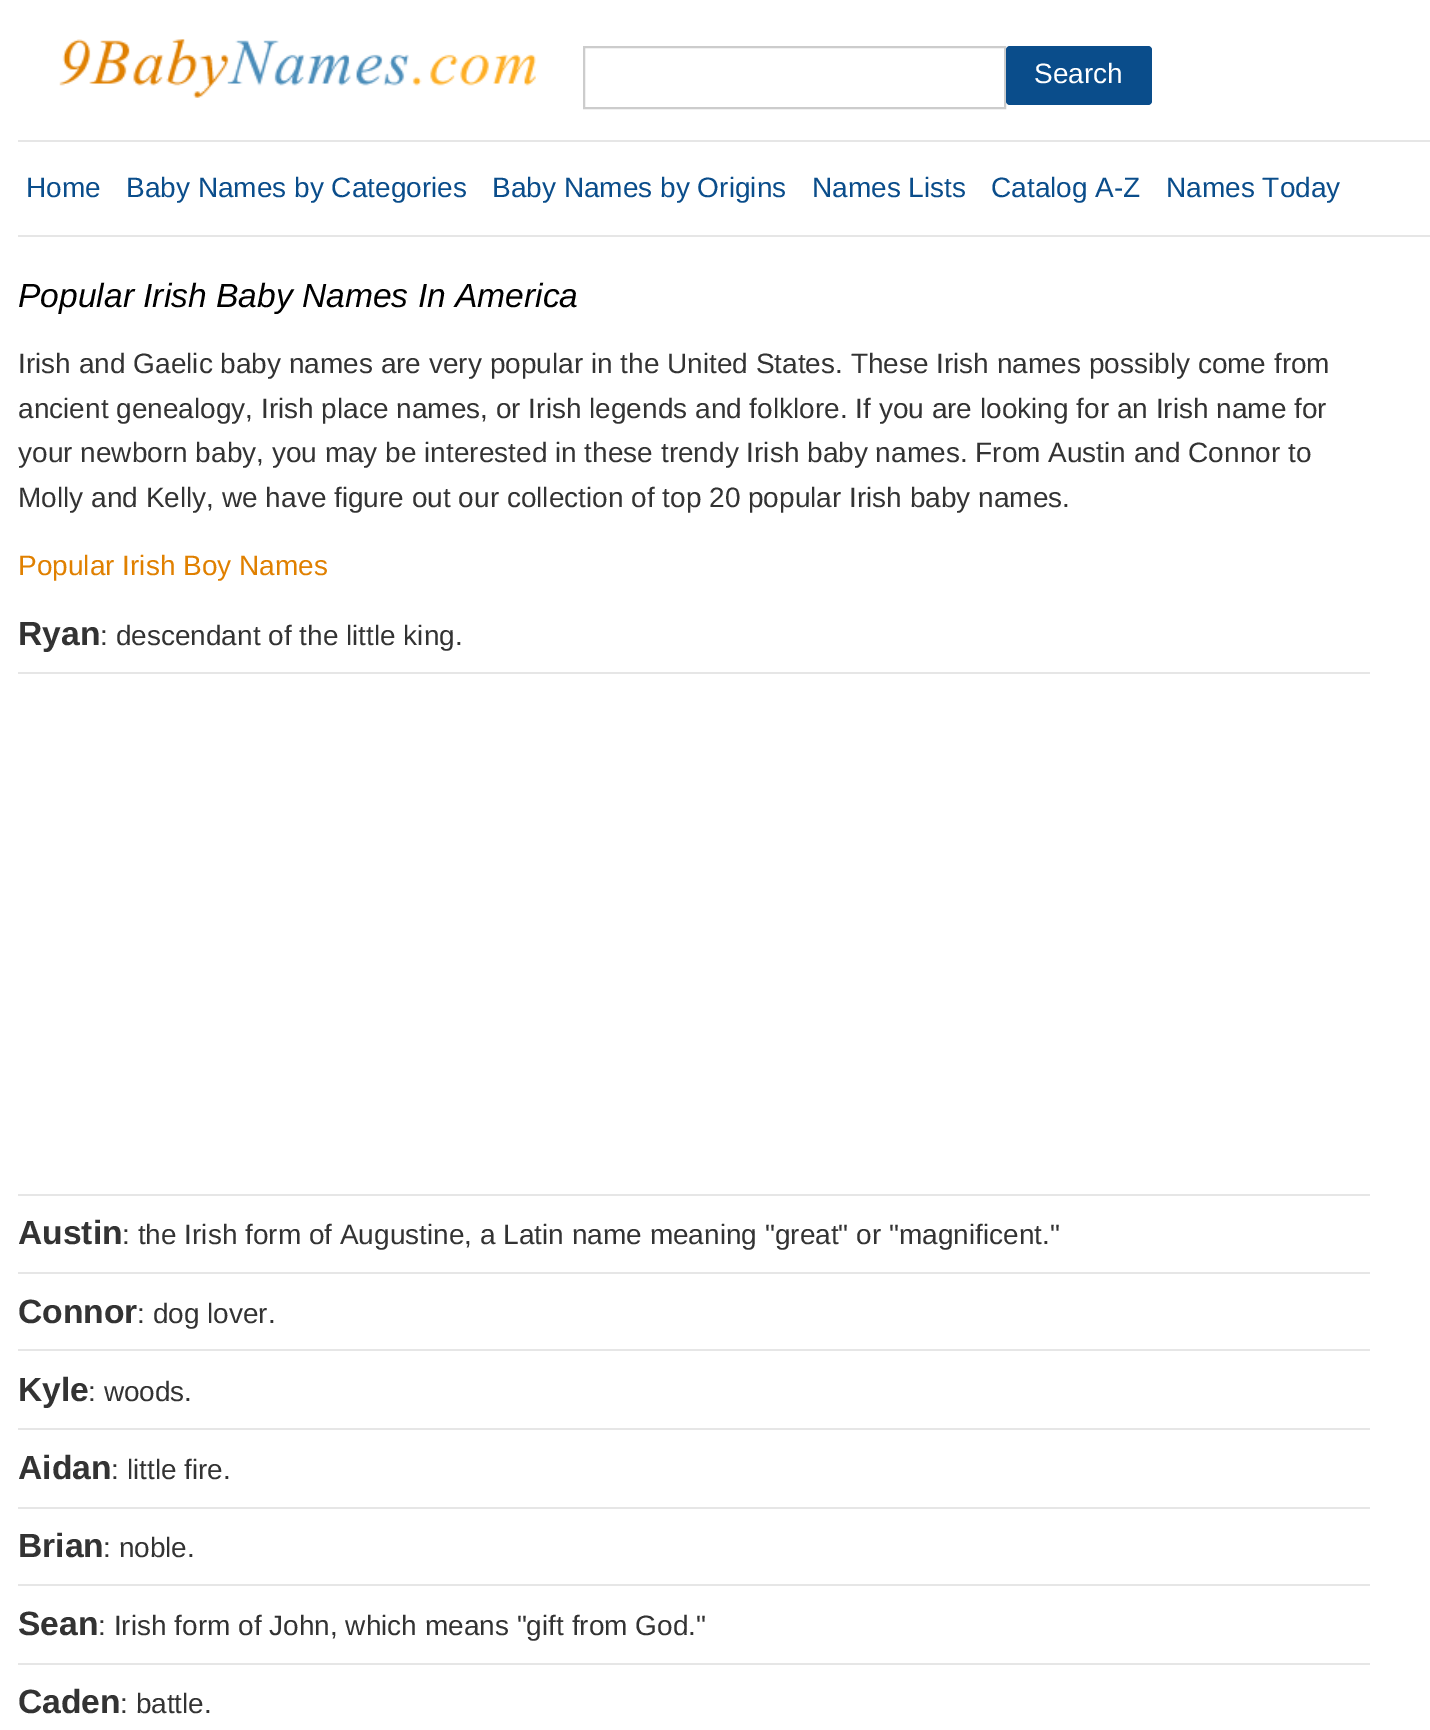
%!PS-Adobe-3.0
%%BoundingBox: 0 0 1430 1730
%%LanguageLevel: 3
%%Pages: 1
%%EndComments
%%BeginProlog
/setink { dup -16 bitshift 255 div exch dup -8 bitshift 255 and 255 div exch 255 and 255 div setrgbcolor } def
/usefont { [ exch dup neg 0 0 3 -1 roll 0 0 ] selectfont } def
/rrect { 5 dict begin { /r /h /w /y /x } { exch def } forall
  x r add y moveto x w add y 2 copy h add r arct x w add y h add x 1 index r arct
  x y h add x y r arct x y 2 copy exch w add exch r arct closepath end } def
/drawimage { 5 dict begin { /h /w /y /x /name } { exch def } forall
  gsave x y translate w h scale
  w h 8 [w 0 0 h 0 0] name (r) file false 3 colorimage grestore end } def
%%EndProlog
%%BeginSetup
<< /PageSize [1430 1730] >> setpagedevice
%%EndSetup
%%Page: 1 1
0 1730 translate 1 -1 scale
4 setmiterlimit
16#FFFFFF setink
0 0 1430 1730 rectfill
(img1.raw) 59 39 477 59 drawimage
16#CCCCCC setink
2 setlinewidth
584 47 421 61 rectstroke
16#0A4D8B setink
1006 46 146 59 4 rrect fill
/LiberationSans-Regular 28 usefont
16#FFFFFF setink
1034 83 moveto (Search) show
16#E6E6E6 setink
18 140 1412 2 rectfill
16#0A4D8B setink
[
    [(Home) 26 197]
    [(Baby Names by Categories) 126 197]
    [(Baby Names by Origins) 492 197]
    [(Names Lists) 812 197]
    [(Catalog A-Z) 991 197]
    [(Names Today) 1166 197]
] { aload pop moveto show } forall
16#E6E6E6 setink
18 235 1412 2 rectfill
/LiberationSans-Italic 33.6 usefont
16#000000 setink
18 307 moveto (Popular Irish Baby Names In America) show
/LiberationSans-Regular 28 usefont
16#333333 setink
[
    [(Irish and Gaelic baby names are very popular in the United States. These Irish names possibly come from) 18 373]
    [(ancient genealogy, Irish place names, or Irish legends and folklore. If you are looking for an Irish name for) 18 418]
    [(your newborn baby, you may be interested in these trendy Irish baby names. From Austin and Connor to) 18 462]
    [(Molly and Kelly, we have figure out our collection of top 20 popular Irish baby names.) 18 507]
] { aload pop moveto show } forall
16#E08000 setink
18 575 moveto (Popular Irish Boy Names) show
/LiberationSans-Bold 33.6 usefont
16#333333 setink
18 645 moveto (Ryan) show
/LiberationSans-Regular 28 usefont
100 645 moveto (: descendant of the little king.) show
16#E6E6E6 setink
18 672 1352 2 rectfill
18 1194 1352 2 rectfill
/LiberationSans-Bold 33.6 usefont
16#333333 setink
18 1244 moveto (Austin) show
/LiberationSans-Regular 28 usefont
122 1244 moveto (: the Irish form of Augustine, a Latin name meaning "great" or "magnificent.") show
16#E6E6E6 setink
18 1272 1352 2 rectfill
/LiberationSans-Bold 33.6 usefont
16#333333 setink
18 1323 moveto (Connor) show
/LiberationSans-Regular 28 usefont
137 1323 moveto (: dog lover.) show
16#E6E6E6 setink
18 1349 1352 2 rectfill
/LiberationSans-Bold 33.6 usefont
16#333333 setink
18 1401 moveto (Kyle) show
/LiberationSans-Regular 28 usefont
88 1401 moveto (: woods.) show
16#E6E6E6 setink
18 1428 1352 2 rectfill
/LiberationSans-Bold 33.6 usefont
16#333333 setink
18 1479 moveto (Aidan) show
/LiberationSans-Regular 28 usefont
111 1479 moveto (: little fire.) show
16#E6E6E6 setink
18 1507 1352 2 rectfill
/LiberationSans-Bold 33.6 usefont
16#333333 setink
18 1557 moveto (Brian) show
/LiberationSans-Regular 28 usefont
103 1557 moveto (: noble.) show
16#E6E6E6 setink
18 1584 1352 2 rectfill
/LiberationSans-Bold 33.6 usefont
16#333333 setink
18 1635 moveto (Sean) show
/LiberationSans-Regular 28 usefont
98 1635 moveto (: Irish form of John, which means "gift from God.") show
16#E6E6E6 setink
18 1663 1352 2 rectfill
/LiberationSans-Bold 33.6 usefont
16#333333 setink
18 1713 moveto (Caden) show
/LiberationSans-Regular 28 usefont
120 1713 moveto (: battle.) show
showpage
%%EOF
